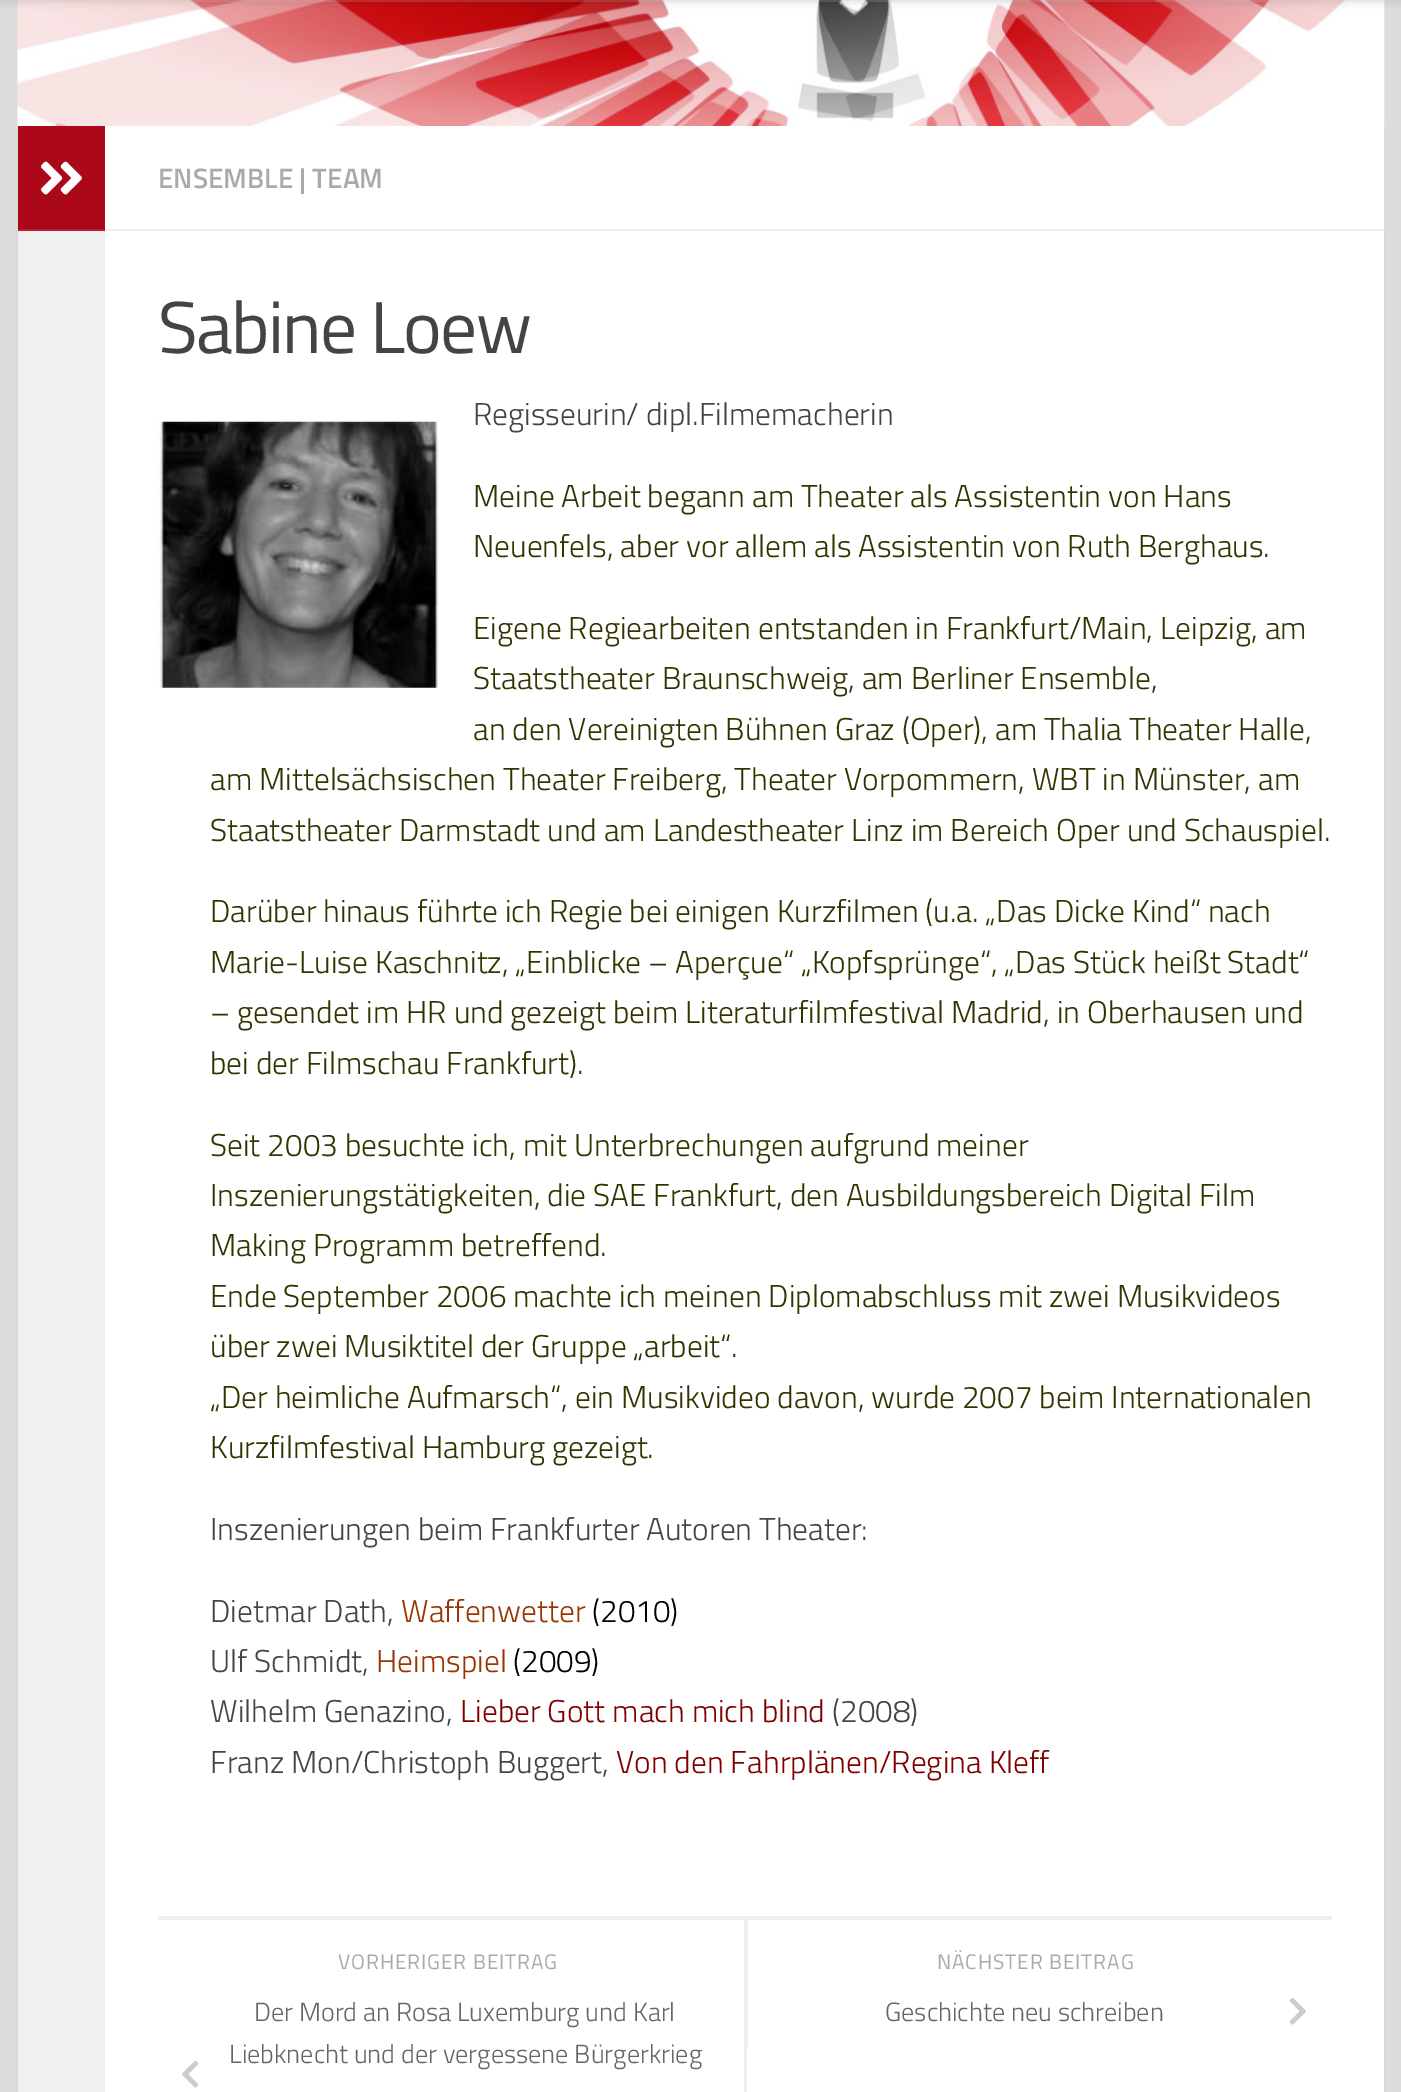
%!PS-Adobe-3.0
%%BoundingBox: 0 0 1401 2092
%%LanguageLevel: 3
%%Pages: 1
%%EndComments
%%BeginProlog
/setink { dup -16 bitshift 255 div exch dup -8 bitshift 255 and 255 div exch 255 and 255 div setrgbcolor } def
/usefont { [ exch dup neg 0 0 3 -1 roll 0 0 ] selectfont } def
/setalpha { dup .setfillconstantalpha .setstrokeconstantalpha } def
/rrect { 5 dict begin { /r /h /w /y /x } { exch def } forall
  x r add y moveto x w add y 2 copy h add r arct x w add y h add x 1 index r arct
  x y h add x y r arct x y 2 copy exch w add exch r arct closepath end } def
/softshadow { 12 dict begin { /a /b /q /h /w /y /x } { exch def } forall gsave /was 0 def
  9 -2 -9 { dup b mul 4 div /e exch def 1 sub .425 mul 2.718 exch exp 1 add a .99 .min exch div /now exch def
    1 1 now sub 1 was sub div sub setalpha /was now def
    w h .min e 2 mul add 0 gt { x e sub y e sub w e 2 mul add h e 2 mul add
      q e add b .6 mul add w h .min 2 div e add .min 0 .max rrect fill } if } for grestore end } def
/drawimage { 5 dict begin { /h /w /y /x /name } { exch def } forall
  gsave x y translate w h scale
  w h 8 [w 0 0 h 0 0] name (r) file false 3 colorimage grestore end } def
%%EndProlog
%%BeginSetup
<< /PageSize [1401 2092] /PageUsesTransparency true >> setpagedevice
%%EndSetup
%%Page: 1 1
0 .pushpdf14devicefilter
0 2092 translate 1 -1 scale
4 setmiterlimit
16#DDDDDD setink
0 0 1401 2092 rectfill
16#000000 setink
18 128 1366 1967 0 1 0.1 softshadow
16#DDDDDD setink
17 127 1368 104 rectfill
(img1.raw) 17 0 1368 126 drawimage
0.15 setalpha
16#FFFFFF setink
0 0 moveto 0 2 lineto 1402 2 lineto 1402 -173 lineto 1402 0 lineto closepath fill
1 setalpha
16#000000 setink
0 -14 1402 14 0 4.5 0.2 softshadow
[
    [105 126 1279 1966 16#FFFFFF]
    [18 231 87 1861 16#F0F0F0]
    [18 126 87 103 16#AB0819]
    [18 229 87 2 16#B32130]
] { aload pop setink rectfill } forall
(img2.raw) 41 161 41 34 drawimage
16#EEEEEE setink
105 229 1279 2 rectfill
/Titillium-SemiBold 28 usefont
16#AAAAAA setink
158 188 moveto (ENSEMBLE | TEAM) show
/Titillium-Regular 73.5 usefont
16#444444 setink
158 353 moveto -1.75 0 (Sabine Loew) ashow
/Titillium-Light 31.5 usefont
473 425 moveto (Regisseurin/ dipl.Filmemacherin) show
(img3.raw) 157 421 281 267 drawimage
16#333300 setink
[
    [(Meine Arbeit begann am Theater als Assistentin von Hans) 473 507]
    [(Neuenfels, aber vor allem als Assistentin von Ruth Berghaus.) 473 557]
    [(Eigene Regiearbeiten entstanden in Frankfurt/Main, Leipzig, am) 473 639]
    [(Staatstheater Braunschweig, am Berliner Ensemble,) 473 689]
    [(an den Vereinigten Bühnen Graz \(Oper\), am Thalia Theater Halle,) 473 740]
    [(am Mittelsächsischen Theater Freiberg, Theater Vorpommern, WBT in Münster, am) 210 790]
    [(Staatstheater Darmstadt und am Landestheater Linz im Bereich Oper und Schauspiel.) 210 841]
    [(Darüber hinaus führte ich Regie bei einigen Kurzfilmen \(u.a. „Das Dicke Kind“ nach) 210 922]
    [(Marie-Luise Kaschnitz, „Einblicke – Aperçue“ „Kopfsprünge“, „Das Stück heißt Stadt“) 210 973]
    [(– gesendet im HR und gezeigt beim Literaturfilmfestival Madrid, in Oberhausen und) 210 1023]
    [(bei der Filmschau Frankfurt\).) 210 1074]
    [(Seit 2003 besuchte ich, mit Unterbrechungen aufgrund meiner) 210 1156]
    [(Inszenierungstätigkeiten, die SAE Frankfurt, den Ausbildungsbereich Digital Film) 210 1206]
    [(Making Programm betreffend.) 210 1256]
    [(Ende September 2006 machte ich meinen Diplomabschluss mit zwei Musikvideos) 210 1307]
    [(über zwei Musiktitel der Gruppe „arbeit“.) 210 1357]
    [(„Der heimliche Aufmarsch“, ein Musikvideo davon, wurde 2007 beim Internationalen) 210 1408]
    [(Kurzfilmfestival Hamburg gezeigt.) 210 1458]
] { aload pop moveto show } forall
16#444444 setink
210 1540 moveto (Inszenierungen beim Frankfurter Autoren Theater:) show
210 1622 moveto (Dietmar Dath,) show
16#993300 setink
401 1622 moveto (Waffenwetter) show
16#000000 setink
592 1622 moveto (\(2010\)) show
16#444444 setink
210 1672 moveto (Ulf Schmidt,) show
16#993300 setink
376 1672 moveto (Heimspiel) show
16#000000 setink
513 1672 moveto (\(2009\)) show
16#444444 setink
210 1722 moveto (Wilhelm Genazino,) show
16#800000 setink
460 1722 moveto (Lieber Gott mach mich blind) show
16#444444 setink
832 1722 moveto (\(2008\)) show
210 1773 moveto (Franz Mon/Christoph Buggert,) show
16#800000 setink
616 1773 moveto (Von den Fahrplänen/Regina Kleff) show
16#EEEEEE setink
158 1916 1174 4 rectfill
159 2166 moveto 159 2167 lineto 747 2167 lineto 747 1920 lineto 746 1920 lineto 746 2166 lineto closepath fill
744 1920 2 172 rectfill
/Titillium-Regular 21 usefont
16#AAAAAA setink
338 1969 moveto 0.9 0 (VORHERIGER BEITRAG) ashow
/Titillium-Light 26.25 usefont
16#666666 setink
254 2021 moveto (Der Mord an Rosa Luxemburg und Karl) show
229 2063 moveto (Liebknecht und der vergessene Bürgerkrieg) show
(img4.raw) 182 2060 17 28 drawimage
16#EEEEEE setink
747 1920 1 128 rectfill
/Titillium-Regular 21 usefont
16#AAAAAA setink
937 1969 moveto 0.9 0 (NÄCHSTER BEITRAG) ashow
/Titillium-Light 26.25 usefont
16#666666 setink
885 2021 moveto (Geschichte neu schreiben) show
(img5.raw) 1289 1997 17 28 drawimage
.poppdf14devicefilter showpage
%%EOF
